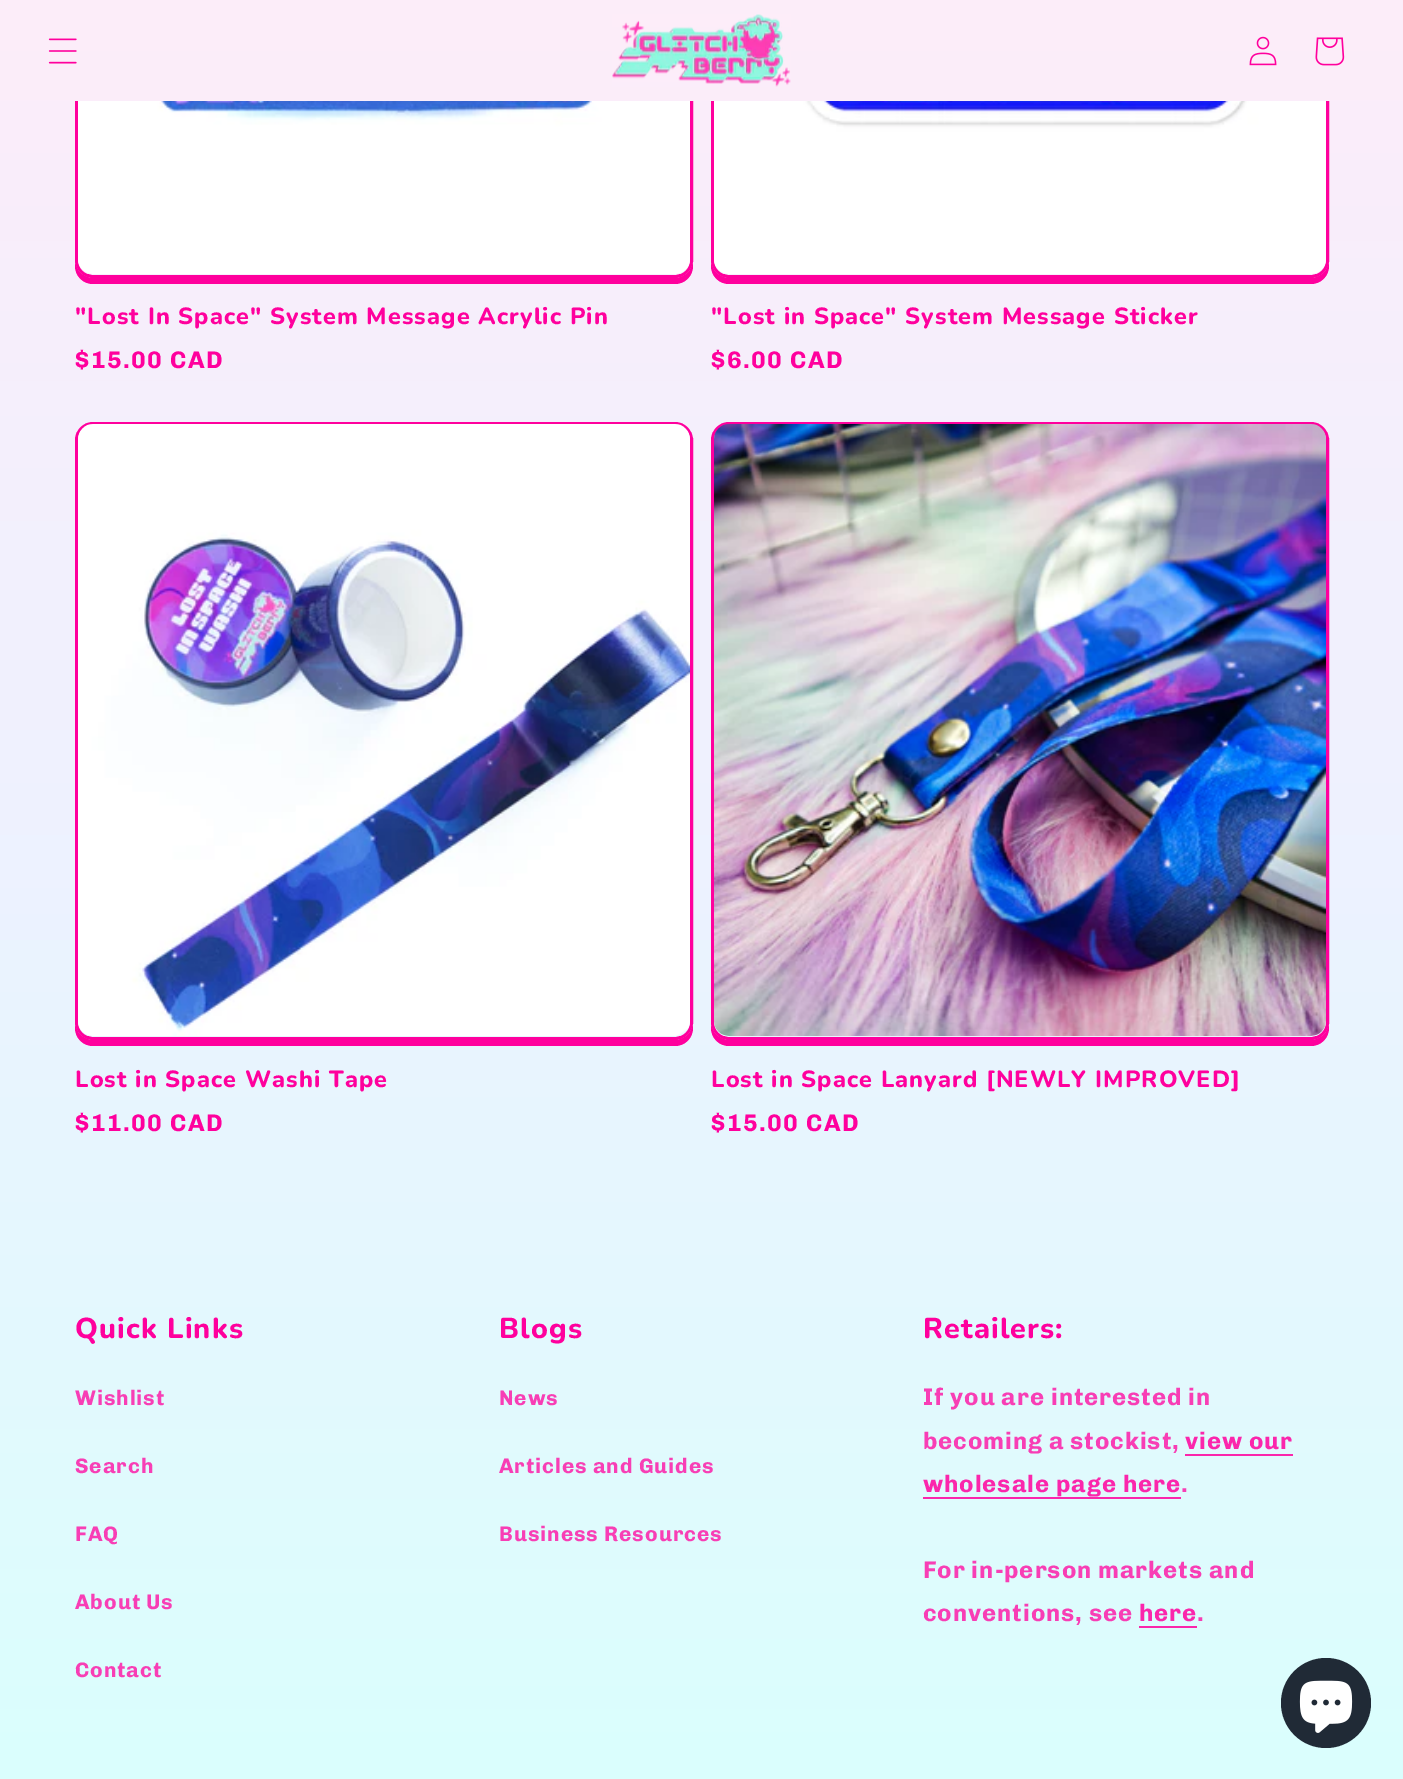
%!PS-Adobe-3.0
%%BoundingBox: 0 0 1403 1779
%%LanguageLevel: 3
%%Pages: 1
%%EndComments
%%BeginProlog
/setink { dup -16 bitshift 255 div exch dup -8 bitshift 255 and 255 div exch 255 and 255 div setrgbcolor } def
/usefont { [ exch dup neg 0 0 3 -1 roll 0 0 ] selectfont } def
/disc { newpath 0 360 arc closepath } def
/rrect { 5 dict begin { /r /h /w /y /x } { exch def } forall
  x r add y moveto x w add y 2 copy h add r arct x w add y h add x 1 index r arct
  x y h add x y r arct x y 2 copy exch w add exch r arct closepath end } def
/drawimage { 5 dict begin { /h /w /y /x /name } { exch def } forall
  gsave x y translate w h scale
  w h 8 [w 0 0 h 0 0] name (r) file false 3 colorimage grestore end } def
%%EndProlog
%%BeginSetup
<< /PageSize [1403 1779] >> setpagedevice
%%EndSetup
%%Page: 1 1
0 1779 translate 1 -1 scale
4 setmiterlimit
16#FFFFFF setink
0 0 1403 1779 rectfill
gsave 0 101 moveto 1403 101 lineto 1403 1779 lineto 0 1779 lineto closepath clip newpath
<< /ShadingType 2 /ColorSpace /DeviceRGB /Coords [702 0 702 1779] /Extend [true true] /Function << /FunctionType 3 /Domain [0 1] /Functions [<< /FunctionType 2 /Domain [0 1] /C0 [0.992 0.929 0.976] /C1 [0.929 0.949 1] /N 1 >> << /FunctionType 2 /Domain [0 1] /C0 [0.929 0.949 1] /C1 [0.855 1 0.992] /N 1 >>] /Bounds [0.49] /Encode [0 1 0 1] >> >> shfill grestore
16#FF009D setink
3 setlinewidth
76.5 -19.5 615 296 16.5 rrect stroke
712.5 -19.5 615 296 16.5 rrect stroke
gsave 0 0 moveto 1403 0 lineto 1403 101 lineto 0 101 lineto closepath clip newpath
<< /ShadingType 2 /ColorSpace /DeviceRGB /Coords [702 0 702 1779] /Extend [true true] /Function << /FunctionType 3 /Domain [0 1] /Functions [<< /FunctionType 2 /Domain [0 1] /C0 [0.992 0.929 0.976] /C1 [0.929 0.949 1] /N 1 >> << /FunctionType 2 /Domain [0 1] /C0 [0.929 0.949 1] /C1 [0.855 1 0.992] /N 1 >>] /Bounds [0.49] /Encode [0 1 0 1] >> >> shfill grestore
(img1.raw) 48 38 29 26 drawimage
(img2.raw) 612 14 179 73 drawimage
(img3.raw) 1249 36 28 30 drawimage
(img4.raw) 1315 37 30 29 drawimage
75 260 moveto 75 266 lineto 75 276 83 284 93 284 curveto 675 284 lineto 685 284 693 276 693 266 curveto 693 260 lineto 693 269 685 278 675 278 curveto 93 278 lineto 83 278 75 269 75 260 curveto closepath fill
(img5.raw) 78 101 612 173 drawimage
/Nunito-ExtraBold 23.4 usefont
75 324 moveto 1.1 0 ("Lost In Space" System Message Acrylic Pin) ashow
/Chivo-Bold 24 usefont
75 368 moveto 1.5 0 ($15.00 CAD) ashow
711 260 moveto 711 266 lineto 711 276 719 284 729 284 curveto 1311 284 lineto 1321 284 1329 276 1329 266 curveto 1329 260 lineto 1329 269 1321 278 1311 278 curveto 729 278 lineto 719 278 711 269 711 260 curveto closepath fill
(img6.raw) 714 101 612 173 drawimage
/Nunito-ExtraBold 23.4 usefont
711 324 moveto 1.1 0 ("Lost in Space" System Message Sticker) ashow
/Chivo-Bold 24 usefont
711 368 moveto 1.5 0 ($6.00 CAD) ashow
76.5 423.5 615 615 16.5 rrect stroke
75 1022 moveto 75 1028 lineto 75 1038 83 1046 93 1046 curveto 675 1046 lineto 685 1046 693 1038 693 1028 curveto 693 1022 lineto 693 1031 685 1040 675 1040 curveto 93 1040 lineto 83 1040 75 1031 75 1022 curveto closepath fill
(img7.raw) 78 424 612 612 drawimage
/Nunito-ExtraBold 23.4 usefont
75 1087 moveto 1.1 0 (Lost in Space Washi Tape) ashow
/Chivo-Bold 24 usefont
75 1131 moveto 1.5 0 ($11.00 CAD) ashow
712.5 423.5 615 615 16.5 rrect stroke
711 1022 moveto 711 1028 lineto 711 1038 719 1046 729 1046 curveto 1311 1046 lineto 1321 1046 1329 1038 1329 1028 curveto 1329 1022 lineto 1329 1031 1321 1040 1311 1040 curveto 729 1040 lineto 719 1040 711 1031 711 1022 curveto closepath fill
(img8.raw) 714 424 612 612 drawimage
/Nunito-ExtraBold 23.4 usefont
711 1087 moveto 1.1 0 (Lost in Space Lanyard [NEWLY IMPROVED]) ashow
/Chivo-Bold 24 usefont
711 1131 moveto 1.5 0 ($15.00 CAD) ashow
/Nunito-ExtraBold 28.75 usefont
75 1338 moveto 1.1 0 (Quick Links) ashow
/Chivo-Bold 21 usefont
16#F83EB5 setink
75 1405 moveto 0.9 0 (Wishlist) ashow
75 1473 moveto 0.9 0 (Search) ashow
75 1541 moveto 0.9 0 (FAQ) ashow
75 1609 moveto 0.9 0 (About Us) ashow
75 1677 moveto 0.9 0 (Contact) ashow
/Nunito-ExtraBold 28.75 usefont
16#FF009D setink
499 1338 moveto 1.1 0 (Blogs) ashow
/Chivo-Bold 21 usefont
16#F83EB5 setink
499 1405 moveto 0.9 0 (News) ashow
499 1473 moveto 0.9 0 (Articles and Guides) ashow
499 1541 moveto 0.9 0 (Business Resources) ashow
/Nunito-ExtraBold 28.75 usefont
16#FF009D setink
923 1338 moveto 1.1 0 (Retailers:) ashow
/Chivo-Bold 24 usefont
16#F83EB5 setink
923 1405 moveto 0.9 0 (If you are interested in) ashow
923 1449 moveto 0.9 0 (becoming a stockist,) ashow
16#FB26AC setink
1185 1449 moveto 0.9 0 (view our) ashow
1185 1454 108 2 rectfill
923 1492 moveto 0.9 0 (wholesale page here) ashow
16#FA26AC setink
923 1497 258 2 rectfill
16#F83EB5 setink
1181 1492 moveto 0.9 0 (.) ashow
923 1578 moveto 0.9 0 (For in-person markets and) ashow
923 1621 moveto 0.9 0 (conventions, see) ashow
16#FB26AC setink
1139 1621 moveto 0.9 0 (here) ashow
16#FA26AB setink
1139 1626 58 2 rectfill
16#F83EB5 setink
1197 1621 moveto 0.9 0 (.) ashow
16#202A36 setink
1326 1703 45 disc fill
(img9.raw) 1299 1680 54 53 drawimage
showpage
%%EOF
